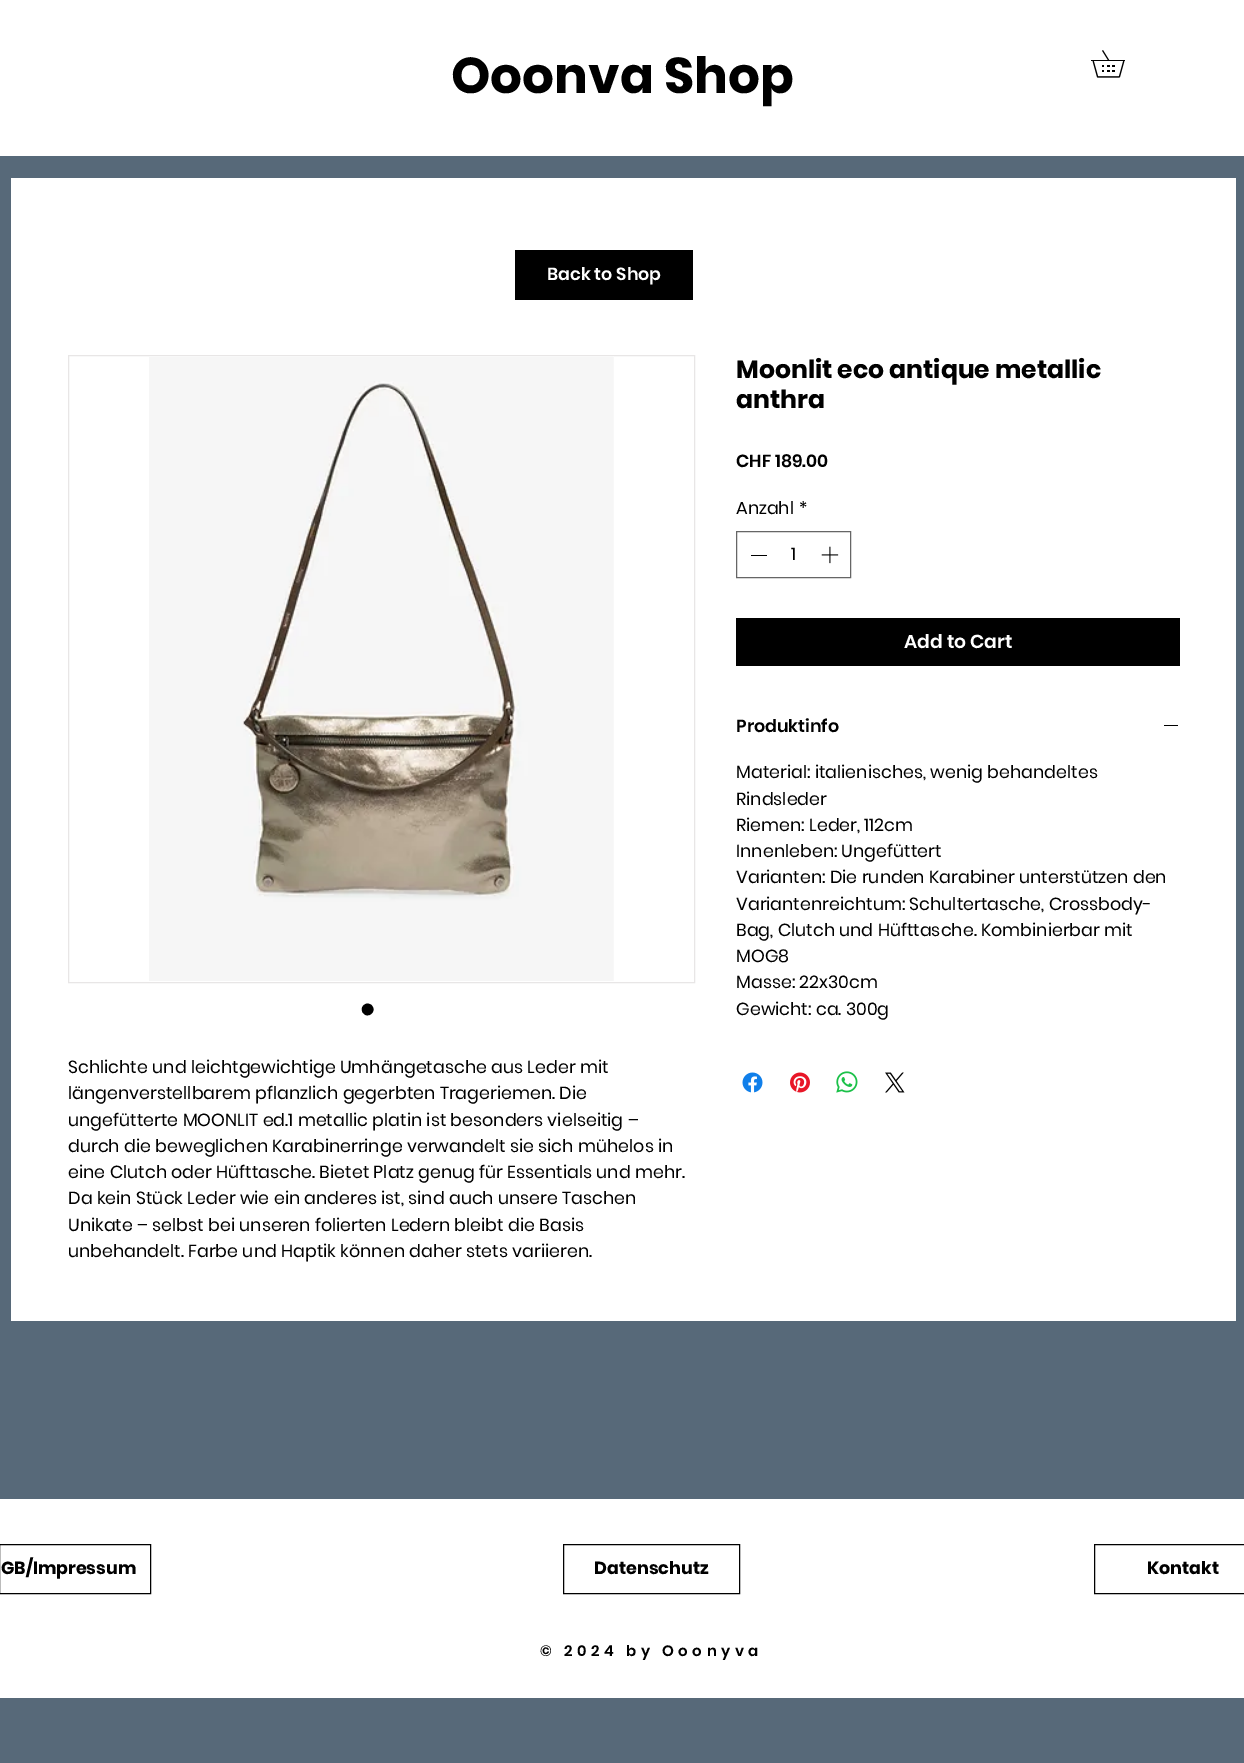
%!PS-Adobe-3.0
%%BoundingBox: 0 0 1244 1763
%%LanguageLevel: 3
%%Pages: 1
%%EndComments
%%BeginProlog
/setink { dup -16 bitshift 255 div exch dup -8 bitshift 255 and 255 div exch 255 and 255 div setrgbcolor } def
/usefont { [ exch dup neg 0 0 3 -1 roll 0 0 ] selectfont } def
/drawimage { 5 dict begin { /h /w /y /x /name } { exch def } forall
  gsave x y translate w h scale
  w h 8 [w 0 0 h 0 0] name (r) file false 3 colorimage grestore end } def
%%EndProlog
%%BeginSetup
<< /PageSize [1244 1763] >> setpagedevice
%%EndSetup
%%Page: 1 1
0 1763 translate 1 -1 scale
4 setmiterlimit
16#576979 setink
0 0 1244 1763 rectfill
16#FFFFFF setink
0 0 1244 156 rectfill
/Poppins-Bold 50 usefont
16#000000 setink
451 93 moveto (Ooonva Shop) show
(img1.raw) 1091 50 34 28 drawimage
16#FFFFFF setink
11 178 1225 1143 rectfill
16#000000 setink
515 250 178 50 rectfill
/Poppins-SemiBold 17.5 usefont
16#FFFFFF setink
547 280 moveto (Back to Shop) show
/Poppins-Bold 25 usefont
16#000000 setink
736 378 moveto (Moonlit eco antique metallic) show
736 408 moveto (anthra) show
/Poppins-SemiBold 17.5 usefont
736 467 moveto (CHF 189.00) show
/Poppins-Regular 17.5 usefont
736 514 moveto (Anzahl) show
799 514 moveto (*) show
16#666666 setink
736.5 531.5 114 46 rectstroke
16#000000 setink
751 555 16 1 rectfill
791 560 moveto (1) show
(img2.raw) 821 546 18 18 drawimage
736 618 444 48 rectfill
/Poppins-SemiBold 18.75 usefont
16#FFFFFF setink
904 648 moveto (Add to Cart) show
/Poppins-SemiBold 17.5 usefont
16#000000 setink
736 732 moveto (Produktinfo) show
1164 725 14 1 rectfill
/Poppins-Regular 17.5 usefont
[
    [(Material: italienisches, wenig behandeltes) 736 778]
    [(Rindsleder) 736 805]
    [(Riemen: Leder, 112cm) 736 831]
    [(Innenleben: Ungefüttert) 736 857]
    [(Varianten: Die runden Karabiner unterstützen den) 736 883]
    [(Variantenreichtum: Schultertasche, Crossbody-) 736 910]
    [(Bag, Clutch und Hüfttasche. Kombinierbar mit) 736 936]
    [(MOG8) 736 962]
    [(Masse: 22x30cm) 736 988]
    [(Gewicht: ca. 300g) 736 1015]
] { aload pop moveto show } forall
(img3.raw) 742 1072 21 21 drawimage
(img4.raw) 790 1072 20 21 drawimage
(img5.raw) 836 1071 22 22 drawimage
(img6.raw) 885 1072 20 21 drawimage
16#E8E6E6 setink
68.5 355.5 626 627 rectstroke
(img7.raw) 149 356 465 625 drawimage
/LiberationSans-Regular 44 usefont
16#000000 setink
360 1024 moveto (•) show
/Poppins-Regular 17.5 usefont
[
    [(Schlichte und leichtgewichtige Umhängetasche aus Leder mit) 68 1073]
    [(längenverstellbarem pflanzlich gegerbten Trageriemen. Die) 68 1099]
    [(ungefütterte MOONLIT ed.1 metallic platin ist besonders vielseitig –) 68 1126]
    [(durch die beweglichen Karabinerringe verwandelt sie sich mühelos in) 68 1152]
    [(eine Clutch oder Hüfttasche. Bietet Platz genug für Essentials und mehr.) 68 1178]
    [(Da kein Stück Leder wie ein anderes ist, sind auch unsere Taschen) 68 1204]
    [(Unikate – selbst bei unseren folierten Ledern bleibt die Basis) 68 1231]
    [(unbehandelt. Farbe und Haptik können daher stets variieren.) 68 1257]
] { aload pop moveto show } forall
16#FFFFFF setink
0 1499 1244 199 rectfill
16#000000 setink
-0.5 1544.5 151 49 rectstroke
/Poppins-Bold 17.5 usefont
1 1574 moveto (GB/Impressum) show
563.5 1544.5 176 49 rectstroke
594 1574 moveto (Datenschutz) show
1094.5 1544.5 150 49 rectstroke
1147 1574 moveto (Kontakt) show
/Poppins-SemiBold 15 usefont
540 1656 moveto 4.5 0 (© 2024 by Ooonyva) ashow
showpage
%%EOF
